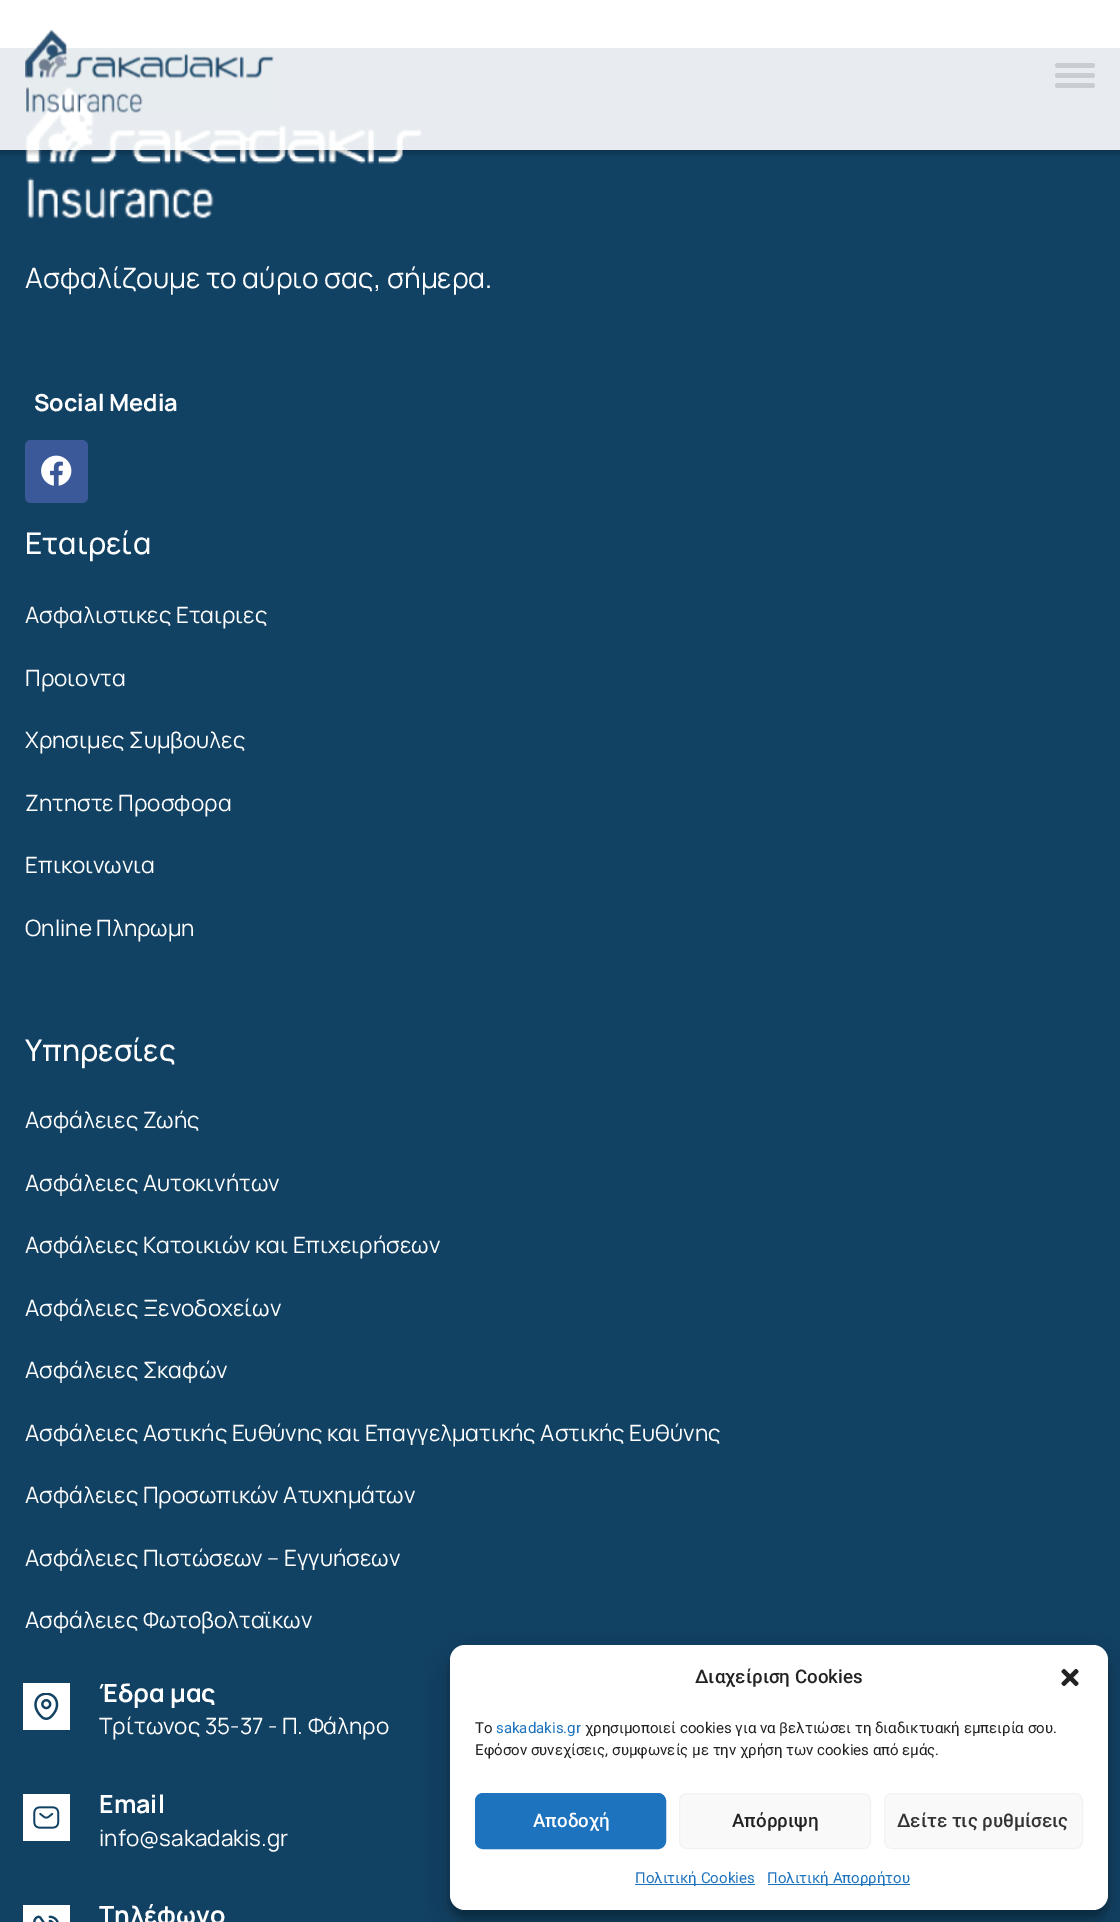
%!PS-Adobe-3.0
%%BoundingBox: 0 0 1120 1922
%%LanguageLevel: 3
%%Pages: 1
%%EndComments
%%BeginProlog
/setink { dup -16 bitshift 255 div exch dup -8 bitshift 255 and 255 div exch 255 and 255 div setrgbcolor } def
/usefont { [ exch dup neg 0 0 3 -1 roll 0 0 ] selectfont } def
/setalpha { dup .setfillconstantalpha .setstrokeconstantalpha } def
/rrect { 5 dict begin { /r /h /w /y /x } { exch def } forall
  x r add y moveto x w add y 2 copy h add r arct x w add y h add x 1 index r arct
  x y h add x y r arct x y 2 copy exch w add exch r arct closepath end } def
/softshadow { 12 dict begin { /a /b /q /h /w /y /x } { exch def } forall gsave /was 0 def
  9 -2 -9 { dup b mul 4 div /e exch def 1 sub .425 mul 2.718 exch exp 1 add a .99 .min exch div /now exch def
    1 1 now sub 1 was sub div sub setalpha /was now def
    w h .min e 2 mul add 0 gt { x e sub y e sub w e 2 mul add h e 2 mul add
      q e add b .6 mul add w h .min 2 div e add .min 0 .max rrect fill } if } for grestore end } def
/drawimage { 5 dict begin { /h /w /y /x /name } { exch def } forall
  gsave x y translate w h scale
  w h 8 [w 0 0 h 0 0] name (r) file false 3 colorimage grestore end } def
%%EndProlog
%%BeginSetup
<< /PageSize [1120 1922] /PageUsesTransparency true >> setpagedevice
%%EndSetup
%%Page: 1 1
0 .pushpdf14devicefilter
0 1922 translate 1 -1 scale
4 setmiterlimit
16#FFFFFF setink
0 0 1120 1922 rectfill
16#114163 setink
0 48 1120 1874 rectfill
(img2.raw) 25 87 397 132 drawimage
gsave
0 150 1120 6 rectclip
16#000000 setink
0 3 1120 150 0 2.5 0.23 softshadow
grestore
0.9 setalpha
16#FFFFFF setink
0 48 1120 102 rectfill
1 setalpha
(img1.raw) 25 29 249 84 drawimage
16#C9CDD1 setink
1055 63 40 5 2.5 rrect fill
1055 73 40 5 2.5 rrect fill
1055 83 40 5 2.5 rrect fill
/Manrope-Regular 28 usefont
16#FFFFFF setink
25 288 moveto (Ασφαλίζουμε το αύριο σας, σήμερα.) show
/Manrope-Bold 23.5 usefont
34 411 moveto (Social Media) show
16#3B5998 setink
25 440 63 63 6 rrect fill
(img3.raw) 41 455 31 31 drawimage
/Manrope-Medium 30 usefont
16#FFFFFF setink
25 554 moveto (Εταιρεία) show
/Manrope-Regular 22.5 usefont
[
    [(Ασφαλιστικες Εταιριες) 25 623]
    [(Προιοντα) 25 686]
    [(Χρησιμες Συμβουλες) 25 748]
    [(Ζητηστε Προσφορα) 25 811]
    [(Επικοινωνια) 25 873]
    [(Online Πληρωμη) 25 936]
] { aload pop moveto show } forall
/Manrope-Medium 30 usefont
25 1061 moveto (Υπηρεσίες) show
/Manrope-Regular 22.5 usefont
[
    [(Ασφάλειες Ζωής) 25 1128]
    [(Ασφάλειες Αυτοκινήτων) 25 1191]
    [(Ασφάλειες Κατοικιών και Επιχειρήσεων) 25 1253]
    [(Ασφάλειες Ξενοδοχείων) 25 1316]
    [(Ασφάλειες Σκαφών) 25 1378]
    [(Ασφάλειες Αστικής Ευθύνης και Επαγγελματικής Αστικής Ευθύνης) 25 1441]
    [(Ασφάλειες Προσωπικών Ατυχημάτων) 25 1503]
    [(Ασφάλειες Πιστώσεων – Εγγυήσεων) 25 1566]
    [(Ασφάλειες Φωτοβολταϊκων) 25 1628]
] { aload pop moveto show } forall
23 1683 47 47 rectfill
(img4.raw) 34 1693 25 27 drawimage
/Manrope-Bold 25 usefont
99 1702 moveto (Έδρα μας) show
/Manrope-Regular 22.5 usefont
99 1734 moveto (Τρίτωνος 35-37 - Π. Φάληρο) show
23 1794 47 47 rectfill
(img5.raw) 33 1806 27 23 drawimage
/Manrope-Bold 25 usefont
99 1813 moveto (Email) show
/Manrope-Regular 22.5 usefont
99 1846 moveto (info@sakadakis.gr) show
23 1905 47 17 rectfill
(img6.raw) 33 1915 26 7 drawimage
/Manrope-Bold 25 usefont
99 1924 moveto (Τηλέφωνο) show
16#000000 setink
450 1653 658 265 15 4 0.23 softshadow
450 1658 658 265 15 12.5 0.19 softshadow
16#FFFFFF setink
450 1645 658 265 15 rrect fill
/Roboto-Medium 18.75 usefont
16#222222 setink
695 1683 moveto (Διαχείριση Cookies) show
(img7.raw) 1061 1668 18 18 drawimage
/Roboto-Regular 15 usefont
475 1733 moveto (To) show
16#1E73BE setink
496 1733 moveto (sakadakis.gr) show
16#222222 setink
585 1733 moveto (χρησιμοποιεί cookies για να βελτιώσει τη διαδικτυακή εμπειρία σου.) show
475 1755 moveto (Εφόσον συνεχίσεις, συμφωνείς με την χρήση των cookies από εμάς.) show
16#1E73BE setink
475.5 1793.5 190 55 7.5 rrect gsave fill grestore
stroke
/Roboto-Medium 18.75 usefont
16#FFFFFF setink
533 1827 moveto (Αποδοχή) show
16#F9F9F9 setink
679.5 1793.5 191 55 7.5 rrect gsave fill grestore
16#F2F2F2 setink
stroke
16#222222 setink
732 1827 moveto (Απόρριψη) show
16#F9F9F9 setink
884.5 1793.5 198 55 7.5 rrect gsave fill grestore
16#F2F2F2 setink
stroke
16#333333 setink
897 1827 moveto (Δείτε τις ρυθμίσεις) show
16#1E73BE setink
635 1884 120 1 rectfill
/Roboto-Regular 15 usefont
635 1883 moveto (Πολιτική Cookies) show
768 1884 142 1 rectfill
767 1883 moveto (Πολιτική Απορρήτου) show
.poppdf14devicefilter showpage
%%EOF
